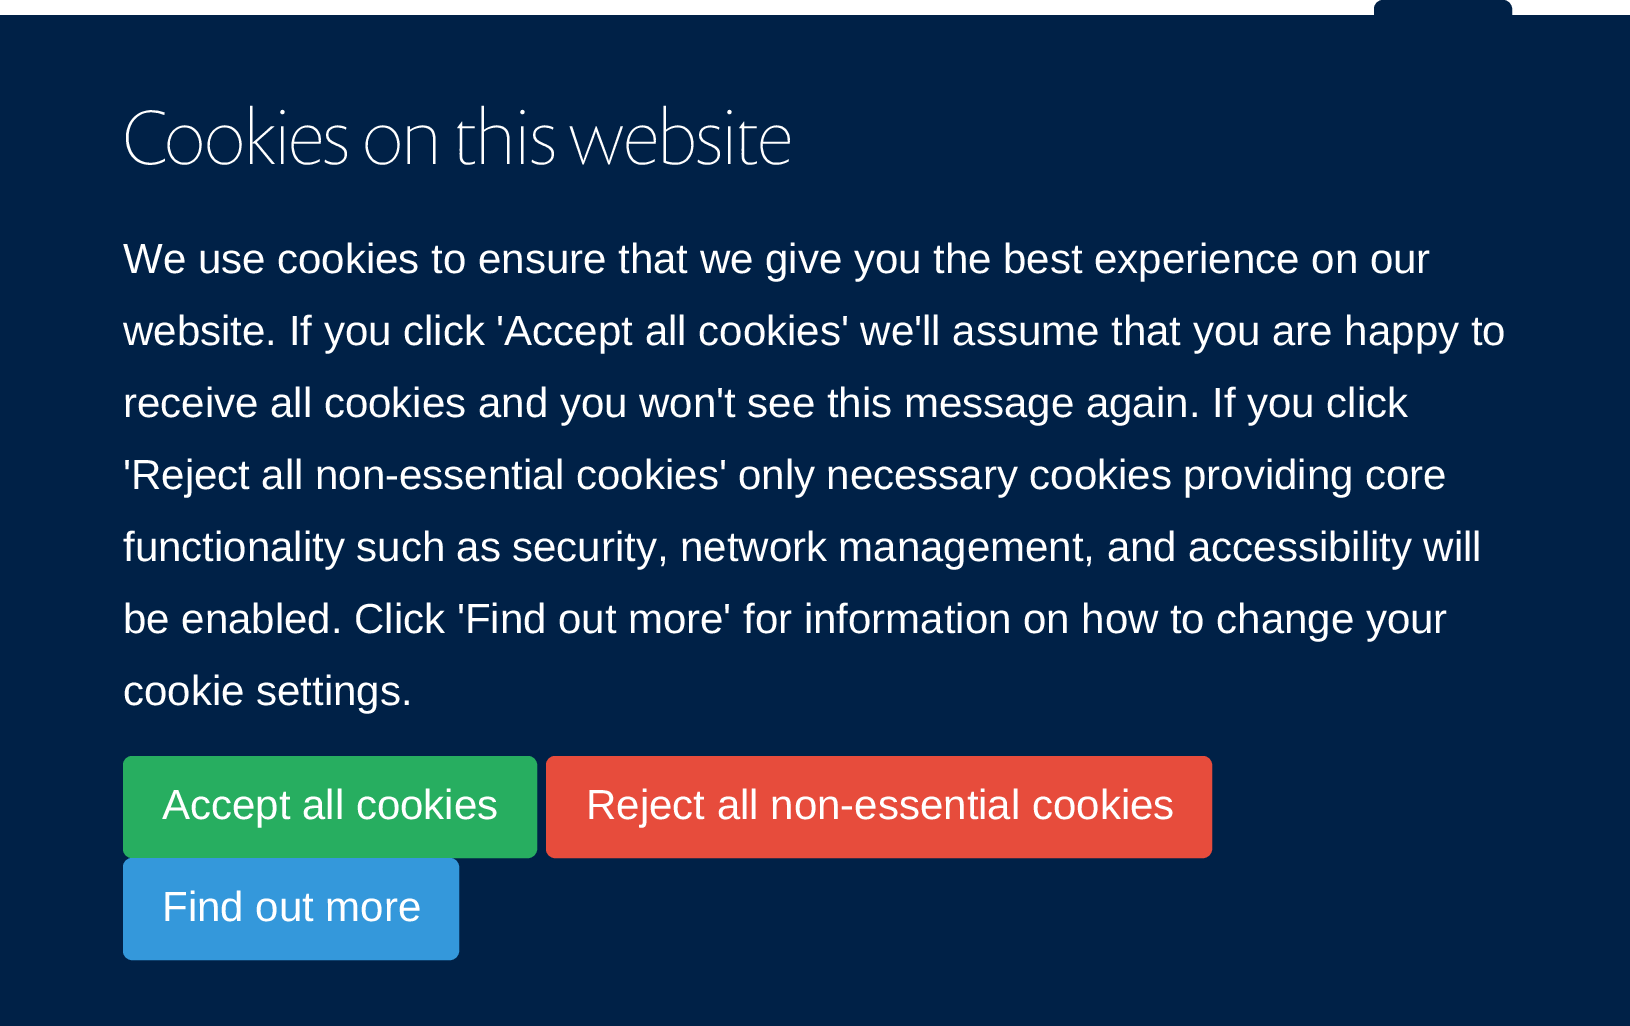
%!PS-Adobe-3.0
%%BoundingBox: 0 0 1630 1026
%%LanguageLevel: 3
%%Pages: 1
%%EndComments
%%BeginProlog
/setink { dup -16 bitshift 255 div exch dup -8 bitshift 255 and 255 div exch 255 and 255 div setrgbcolor } def
/usefont { [ exch dup neg 0 0 3 -1 roll 0 0 ] selectfont } def
/rrect { 5 dict begin { /r /h /w /y /x } { exch def } forall
  x r add y moveto x w add y 2 copy h add r arct x w add y h add x 1 index r arct
  x y h add x y r arct x y 2 copy exch w add exch r arct closepath end } def
%%EndProlog
%%BeginSetup
<< /PageSize [1630 1026] >> setpagedevice
%%EndSetup
%%Page: 1 1
0 1026 translate 1 -1 scale
4 setmiterlimit
16#FFFFFF setink
0 0 1630 1026 rectfill
16#002147 setink
1375.5 1.5 135 99 7.5 rrect gsave fill grestore
3 setlinewidth
stroke
0 15 1630 1011 rectfill
/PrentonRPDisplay-Thin 78 usefont
16#FFFFFF setink
123 164 moveto (Cookies on this website) show
/LiberationSans-Regular 42 usefont
[
    [(We use cookies to ensure that we give you the best experience on our) 123 273]
    [(website. If you click 'Accept all cookies' we'll assume that you are happy to) 123 345]
    [(receive all cookies and you won't see this message again. If you click) 123 417]
] { aload pop moveto show } forall
123 489 moveto -0.25 0 32 ('Reject all non-essential cookies' only necessary cookies providing core) widthshow
123 561 moveto -0.25 0 32 (functionality such as security, network management, and accessibility will) widthshow
123 633 moveto -0.1 0 32 (be enabled. Click 'Find out more' for information on how to change your) widthshow
123 705 moveto (cookie settings.) show
16#27AE60 setink
124.5 757.5 411 99 7.5 rrect gsave fill grestore
stroke
16#FFFFFF setink
162 819 moveto (Accept all cookies) show
16#E74C3C setink
547.5 757.5 663 99 7.5 rrect gsave fill grestore
stroke
16#FFFFFF setink
586 819 moveto (Reject all non-essential cookies) show
16#3498DB setink
124.5 859.5 333 99 7.5 rrect gsave fill grestore
stroke
16#FFFFFF setink
162 921 moveto (Find out more) show
showpage
%%EOF
